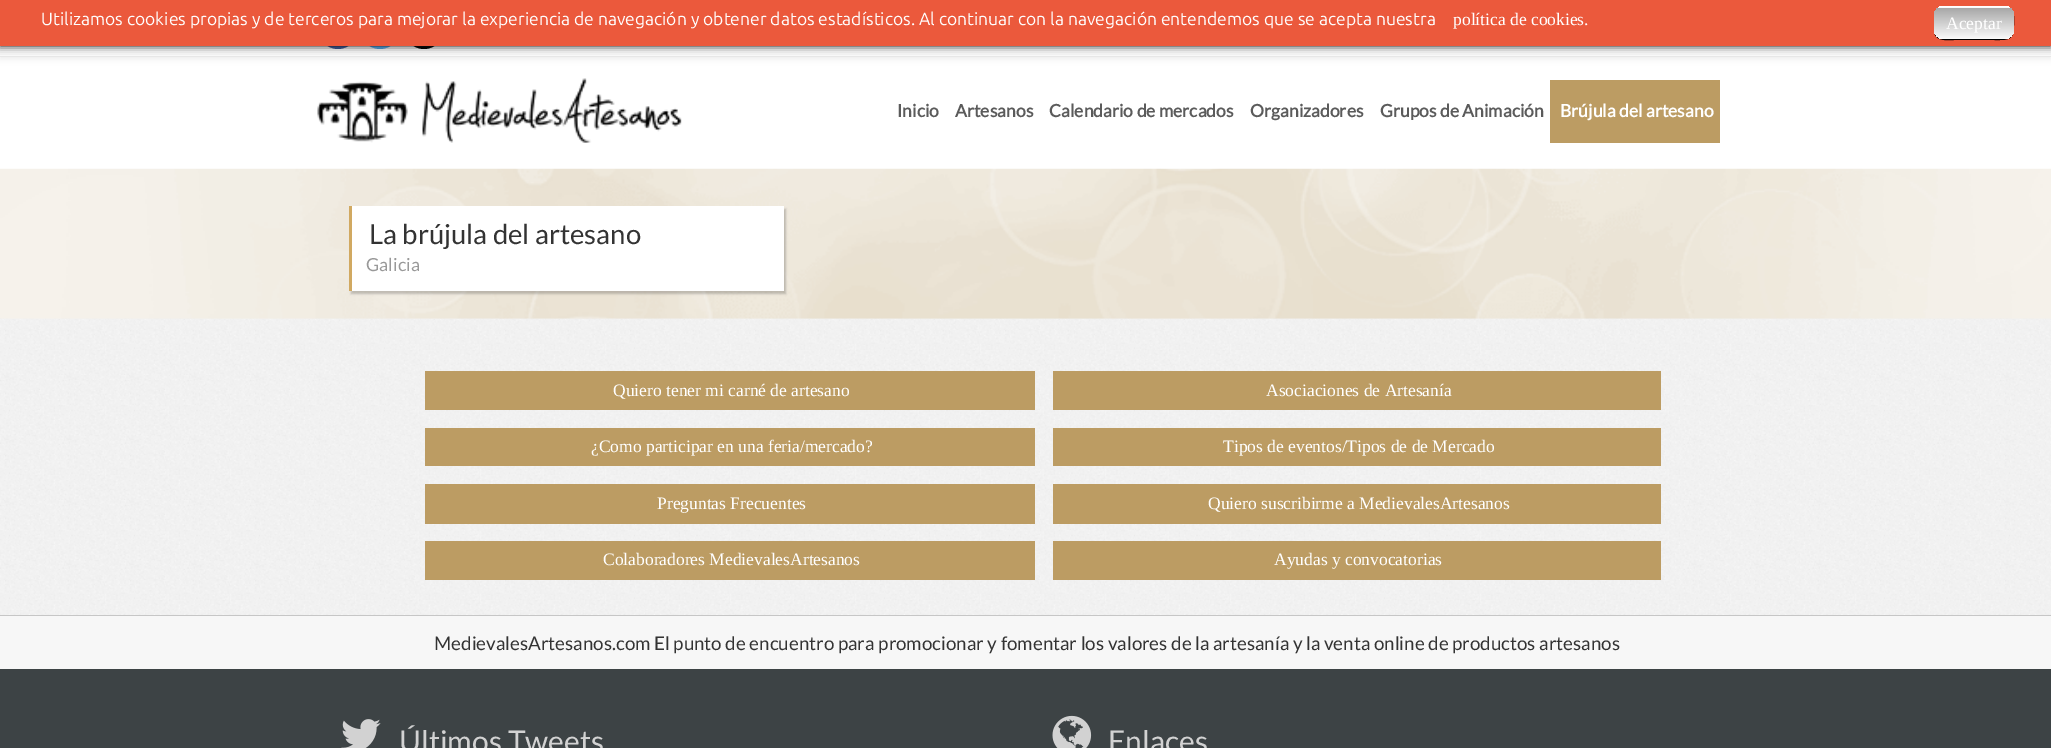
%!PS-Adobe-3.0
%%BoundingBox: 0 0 2051 748
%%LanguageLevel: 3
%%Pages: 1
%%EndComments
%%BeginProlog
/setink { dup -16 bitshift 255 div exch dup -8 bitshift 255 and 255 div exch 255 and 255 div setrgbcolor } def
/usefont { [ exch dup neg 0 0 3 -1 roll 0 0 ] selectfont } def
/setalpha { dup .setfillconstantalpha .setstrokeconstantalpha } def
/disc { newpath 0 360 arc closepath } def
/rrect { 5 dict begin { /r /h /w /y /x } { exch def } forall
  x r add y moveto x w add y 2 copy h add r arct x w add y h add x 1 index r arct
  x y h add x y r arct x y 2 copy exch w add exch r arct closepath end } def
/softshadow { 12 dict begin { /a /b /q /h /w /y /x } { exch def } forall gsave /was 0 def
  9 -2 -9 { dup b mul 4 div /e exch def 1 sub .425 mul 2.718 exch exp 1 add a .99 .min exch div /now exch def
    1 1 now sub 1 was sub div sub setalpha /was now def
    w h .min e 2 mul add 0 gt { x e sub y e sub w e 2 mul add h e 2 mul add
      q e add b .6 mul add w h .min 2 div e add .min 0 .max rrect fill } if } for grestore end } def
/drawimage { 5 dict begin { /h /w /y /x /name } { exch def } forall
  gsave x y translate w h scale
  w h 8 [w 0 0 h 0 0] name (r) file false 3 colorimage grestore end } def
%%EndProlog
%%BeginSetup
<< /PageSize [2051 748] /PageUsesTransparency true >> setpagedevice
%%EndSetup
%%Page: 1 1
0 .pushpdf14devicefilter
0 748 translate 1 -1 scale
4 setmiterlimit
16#FFFFFF setink
0 0 2051 748 rectfill
16#000000 setink
0 3 2051 56 0 3 0.07 softshadow
gsave 0 46 moveto 2051 46 lineto 2051 56 lineto 0 56 lineto closepath clip newpath
<< /ShadingType 2 /ColorSpace /DeviceRGB /Coords [1026 1.2 1026 56] /Extend [true true] /Function << /FunctionType 2 /Domain [0 1] /C0 [1 1 1] /C1 [0.973 0.973 0.973] /N 1 >> >> shfill grestore
16#E7E7E7 setink
0 56 2051 1 rectfill
16#3B5998 setink
338 29 20 disc fill
16#55ACEE setink
380 29 20 disc fill
16#000000 setink
424 29 20 disc fill
16#111111 setink
0 0 2051 46 0 4 1 softshadow
16#EB593C setink
0 0 2051 46 rectfill
/Ubuntu-Regular 17.5 usefont
16#FFFFFF setink
41 25 moveto (Utilizamos cookies propias y de terceros para mejorar la experiencia de navegación y obtener datos estadísticos. Al continuar con la navegación entendemos que se acepta nuestra) show
/LiberationSerif-Regular 17.5 usefont
1453 25 moveto (política de cookies.) show
16#000000 setink
1934 31 moveto 1935 42 1947 40 1954 40 curveto 1994 40 lineto 2007 40 2014 41 2014 26 curveto 2014 16 lineto 2015 42 2010 39 1984 39 curveto 1954 39 lineto 1947 39 1937 40 1934 31 curveto closepath fill
gsave
1934 6 80 33 10 rrect clip newpath
gsave 1934 8 moveto 2014 8 lineto 2014 29 lineto 2014 34.5 2009.5 39 2004 39 curveto 1944 39 lineto 1938.5 39 1934 34.5 1934 29 curveto closepath clip newpath
<< /ShadingType 2 /ColorSpace /DeviceRGB /Coords [1974 7.5 1974 39] /Extend [true true] /Function << /FunctionType 2 /Domain [0 1] /C0 [0.651 0.651 0.651] /C1 [0.98 0.98 0.98] /N 1 >> >> shfill grestore
grestore
16#FFFFFF setink
1946 29 moveto (Aceptar) show
gsave
1934 6 80 33 10 rrect clip newpath
gsave 1934 7 moveto 2014 7 lineto 2014 8 lineto 1934 8 lineto closepath clip newpath
<< /ShadingType 2 /ColorSpace /DeviceRGB /Coords [1974 -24 1974 7.5] /Extend [true true] /Function << /FunctionType 2 /Domain [0 1] /C0 [0.651 0.651 0.651] /C1 [0.98 0.98 0.98] /N 1 >> >> shfill grestore
grestore
1939 6 70 1 rectfill
(img1.raw) 317 78 365 65 drawimage
/Lato-Bold 17.5 usefont
16#5B5B5B setink
[
    [(Inicio) 897 117]
    [(Artesanos) 955 117]
    [(Calendario de mercados) 1049 117]
    [(Organizadores) 1250 117]
    [(Grupos de Animación) 1380 117]
] { aload pop moveto show } forall
16#BC9C63 setink
1550 80 170 63 rectfill
16#FFFFFF setink
1560 117 moveto (Brújula del artesano) show
(img2.raw) 0 168 2051 151 drawimage
16#000000 setink
351 209 435 85 0 1 0.2 softshadow
16#FFFFFF setink
352 206 432 85 rectfill
16#D1A961 setink
349 206 3 85 rectfill
/Lato-Regular 27.5 usefont
16#333333 setink
369 244 moveto (La brújula del artesano) show
/Lato-Regular 18 usefont
16#999999 setink
366 271 moveto (Galicia) show
(img3.raw) 0 318 2051 297 drawimage
16#BC9C63 setink
425 371 610 39 rectfill
/LiberationSerif-Regular 17.5 usefont
16#FFFFFF setink
613 396 moveto (Quiero tener mi carné de artesano) show
16#BC9C63 setink
1053 371 608 39 rectfill
16#FFFFFF setink
1266 396 moveto (Asociaciones de Artesanía) show
16#BC9C63 setink
425 428 610 38 rectfill
16#FFFFFF setink
591 452 moveto (¿Como participar en una feria/mercado?) show
16#BC9C63 setink
1053 428 608 38 rectfill
16#FFFFFF setink
1223 452 moveto (Tipos de eventos/Tipos de de Mercado) show
16#BC9C63 setink
425 484 610 40 rectfill
16#FFFFFF setink
657 509 moveto (Preguntas Frecuentes) show
16#BC9C63 setink
1053 484 608 40 rectfill
16#FFFFFF setink
1208 509 moveto (Quiero suscribirme a MedievalesArtesanos) show
16#BC9C63 setink
425 541 610 39 rectfill
16#FFFFFF setink
603 565 moveto (Colaboradores MedievalesArtesanos) show
16#BC9C63 setink
1053 541 608 39 rectfill
16#FFFFFF setink
1274 565 moveto (Ayudas y convocatorias) show
16#F7F7F7 setink
0 616 2051 53 rectfill
16#C6C6C6 setink
0 615 2051 1 rectfill
/Lato-Regular 18.75 usefont
16#333333 setink
434 650 moveto (MedievalesArtesanos.com El punto de encuentro para promocionar y fomentar los valores de la artesanía y la venta online de productos artesanos) show
16#3D4345 setink
0 669 2051 79 rectfill
(img4.raw) 341 719 40 29 drawimage
/Lato-Regular 30 usefont
16#D2D2D2 setink
399 752 moveto (Últimos Tweets) show
(img5.raw) 1052 715 40 33 drawimage
1108 752 moveto (Enlaces) show
.poppdf14devicefilter showpage
%%EOF
